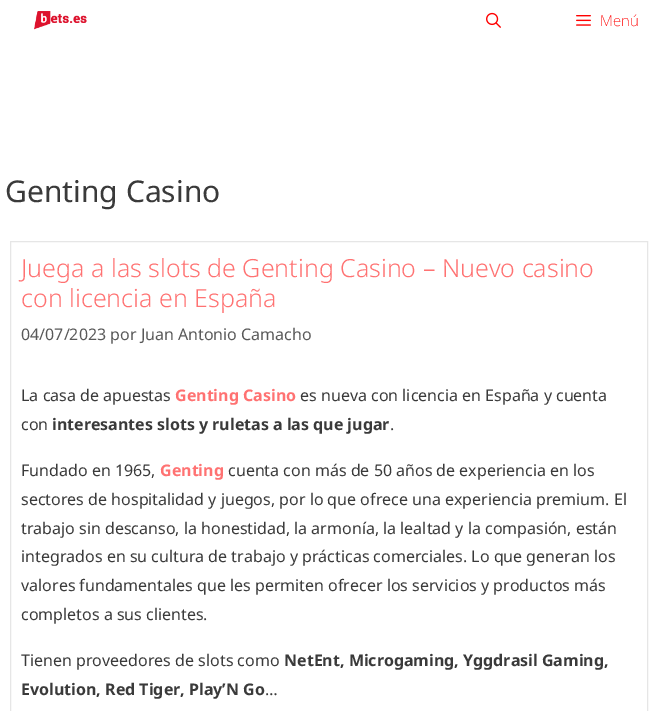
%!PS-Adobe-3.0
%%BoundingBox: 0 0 658 711
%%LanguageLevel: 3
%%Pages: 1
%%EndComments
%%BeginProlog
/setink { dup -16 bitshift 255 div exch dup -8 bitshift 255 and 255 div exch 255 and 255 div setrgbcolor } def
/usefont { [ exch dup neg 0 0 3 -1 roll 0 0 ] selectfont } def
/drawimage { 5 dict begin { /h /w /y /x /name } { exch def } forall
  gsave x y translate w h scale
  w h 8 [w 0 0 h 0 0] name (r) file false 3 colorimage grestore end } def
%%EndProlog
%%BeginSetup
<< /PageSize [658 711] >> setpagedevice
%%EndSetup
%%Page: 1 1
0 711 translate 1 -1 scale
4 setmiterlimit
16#FFFFFF setink
0 0 658 711 rectfill
(img1.raw) 34 11 53 19 drawimage
(img2.raw) 486 12 15 16 drawimage
(img3.raw) 576 15 15 11 drawimage
/NotoSans-ExtraLight 15 usefont
16#FF0000 setink
600 26 moveto (Menú) show
/NotoSans-Regular 30 usefont
16#3A3A3A setink
5 202 moveto (Genting Casino) show
16#E6E6E6 setink
10.5 241.5 637 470 rectstroke
/NotoSans-Light 25 usefont
16#FF7272 setink
21 277 moveto (Juega a las slots de Genting Casino – Nuevo casino) show
21 307 moveto (con licencia en España) show
/NotoSans-Regular 16 usefont
16#595959 setink
21 340 moveto (04/07/2023 por Juan Antonio Camacho) show
16#3A3A3A setink
21 401 moveto (La casa de apuestas) show
/NotoSans-Bold 16 usefont
16#FF7272 setink
175 401 moveto (Genting Casino) show
/NotoSans-Regular 16 usefont
16#3A3A3A setink
300 401 moveto (es nueva con licencia en España y cuenta) show
21 430 moveto (con) show
/NotoSans-Bold 16 usefont
52 430 moveto (interesantes slots y ruletas a las que jugar) show
/NotoSans-Regular 16 usefont
390 430 moveto (.) show
21 476 moveto (Fundado en 1965,) show
/NotoSans-Bold 16 usefont
16#FF7272 setink
160 476 moveto (Genting) show
/NotoSans-Regular 16 usefont
16#3A3A3A setink
[
    [(cuenta con más de 50 años de experiencia en los) 228 476]
    [(sectores de hospitalidad y juegos, por lo que ofrece una experiencia premium. El) 21 505]
    [(trabajo sin descanso, la honestidad, la armonía, la lealtad y la compasión, están) 21 534]
    [(integrados en su cultura de trabajo y prácticas comerciales. Lo que generan los) 21 562]
    [(valores fundamentales que les permiten ofrecer los servicios y productos más) 21 591]
    [(completos a sus clientes.) 21 620]
    [(Tienen proveedores de slots como) 21 666]
] { aload pop moveto show } forall
/NotoSans-Bold 16 usefont
284 666 moveto (NetEnt, Microgaming, Yggdrasil Gaming,) show
21 695 moveto (Evolution, Red Tiger, Play’N Go) show
/NotoSans-Regular 16 usefont
265 695 moveto (…) show
showpage
%%EOF
